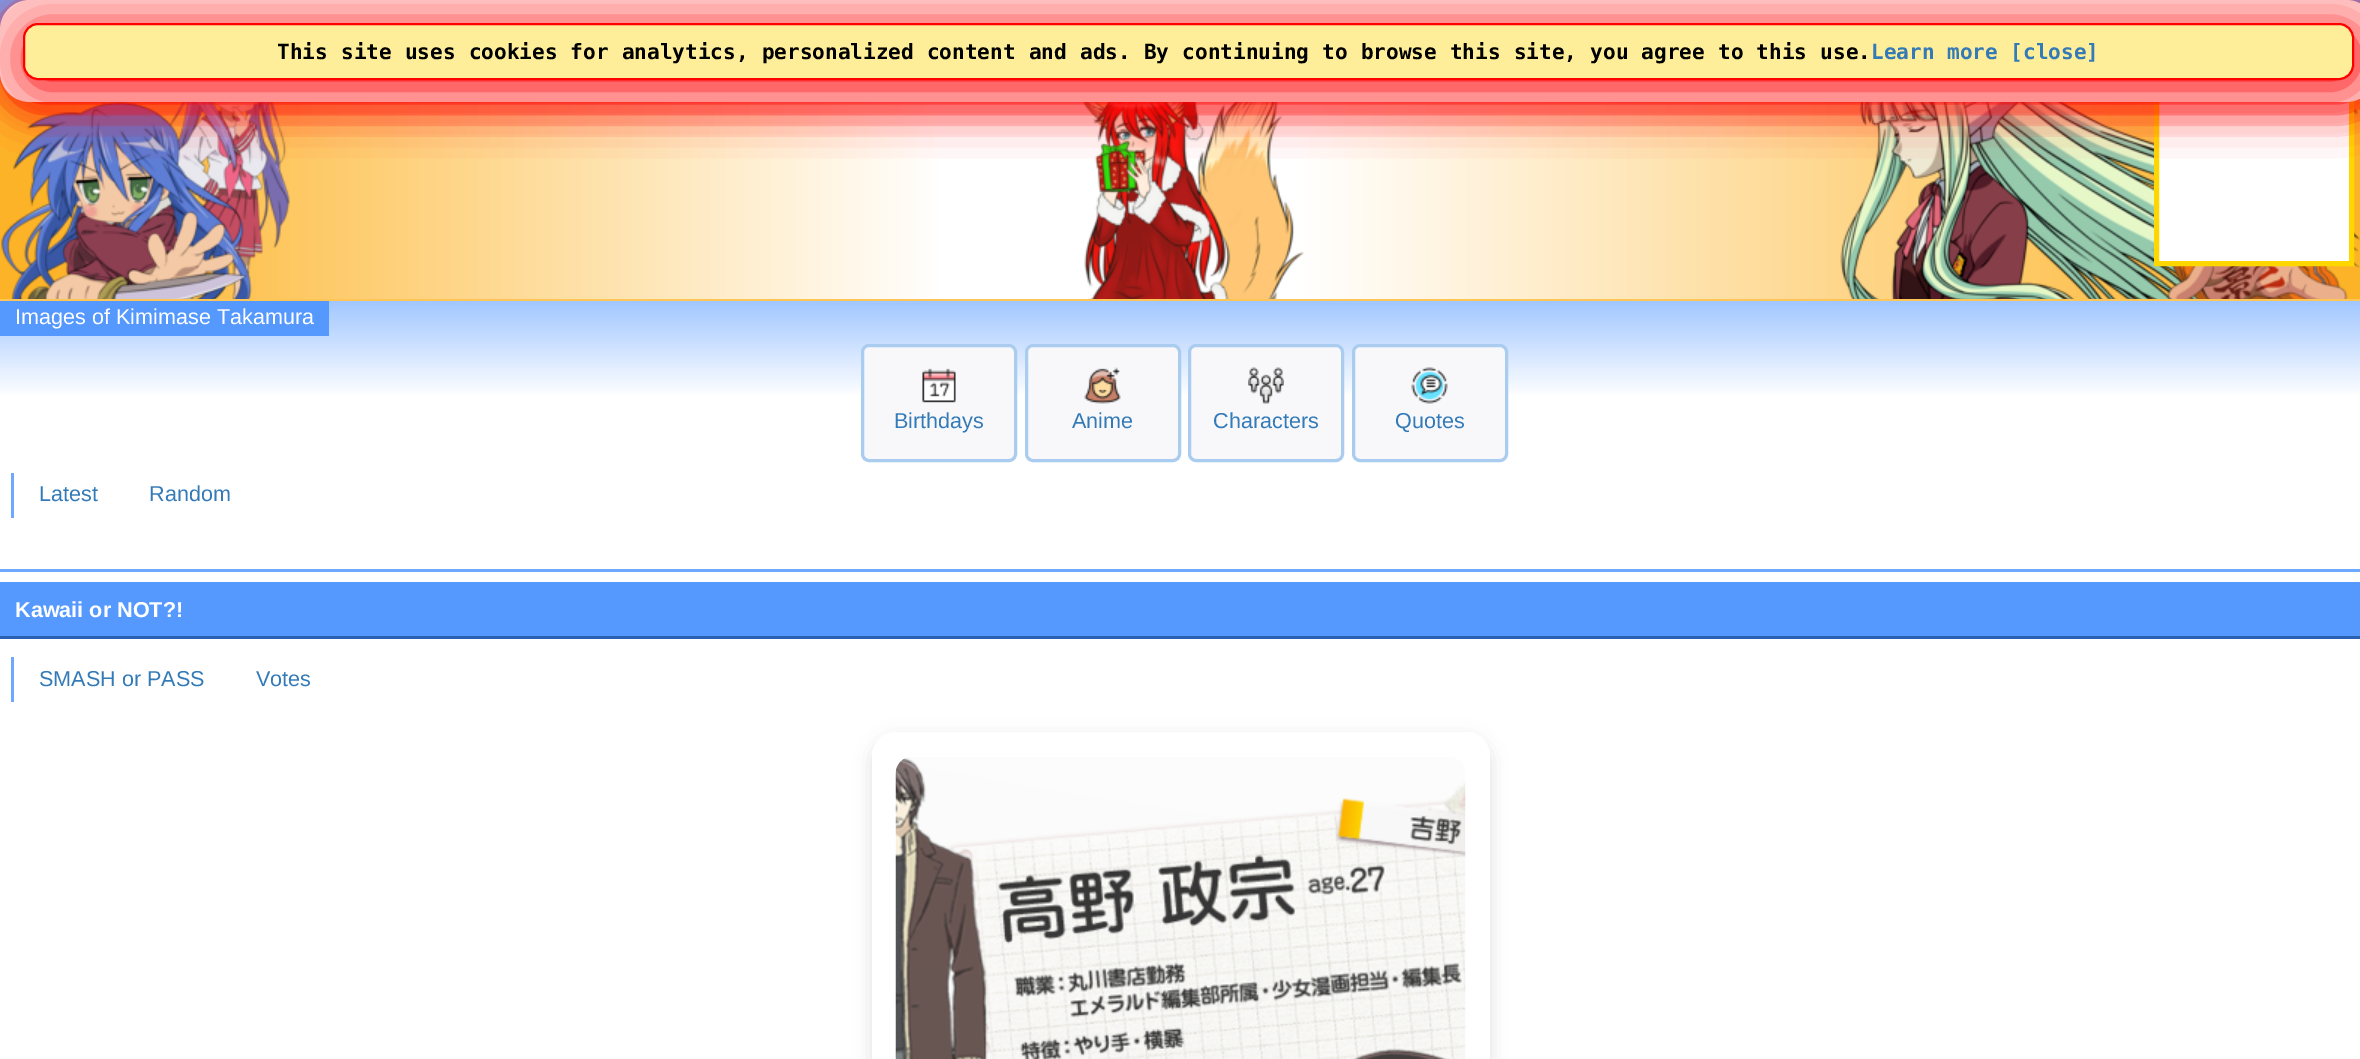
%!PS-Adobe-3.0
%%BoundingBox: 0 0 2360 1059
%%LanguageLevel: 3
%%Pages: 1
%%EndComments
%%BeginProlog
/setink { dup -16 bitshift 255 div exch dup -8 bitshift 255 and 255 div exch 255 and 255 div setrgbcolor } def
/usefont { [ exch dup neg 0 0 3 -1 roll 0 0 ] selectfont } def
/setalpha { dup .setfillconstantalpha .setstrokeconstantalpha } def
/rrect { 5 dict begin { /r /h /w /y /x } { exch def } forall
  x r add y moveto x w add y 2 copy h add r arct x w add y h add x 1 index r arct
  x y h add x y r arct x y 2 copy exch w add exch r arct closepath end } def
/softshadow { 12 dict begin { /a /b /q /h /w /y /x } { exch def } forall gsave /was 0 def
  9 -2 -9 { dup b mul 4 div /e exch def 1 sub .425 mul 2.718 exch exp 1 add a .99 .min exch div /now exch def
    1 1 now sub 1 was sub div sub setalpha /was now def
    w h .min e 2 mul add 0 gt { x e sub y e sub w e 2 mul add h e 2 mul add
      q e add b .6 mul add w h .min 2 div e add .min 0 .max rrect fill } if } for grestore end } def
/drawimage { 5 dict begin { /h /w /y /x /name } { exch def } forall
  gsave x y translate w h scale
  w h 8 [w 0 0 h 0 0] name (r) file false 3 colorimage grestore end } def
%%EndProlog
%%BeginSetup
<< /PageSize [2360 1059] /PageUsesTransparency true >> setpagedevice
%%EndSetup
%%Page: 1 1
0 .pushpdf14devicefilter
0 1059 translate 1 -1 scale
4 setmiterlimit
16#FFFFFF setink
0 0 2360 1059 rectfill
16#6EA8FF setink
0 0 2360 30 rectfill
gsave 0 72 moveto 2360 72 lineto 2360 299 lineto 0 299 lineto closepath clip newpath
<< /ShadingType 2 /ColorSpace /DeviceRGB /Coords [0 179 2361 179] /Extend [true true] /Function << /FunctionType 3 /Domain [0 1] /Functions [<< /FunctionType 2 /Domain [0 1] /C0 [0.992 0.702 0.153] /C1 [0.992 0.702 0.153] /N 1 >> << /FunctionType 2 /Domain [0 1] /C0 [0.992 0.702 0.153] /C1 [1 1 1] /N 1 >> << /FunctionType 2 /Domain [0 1] /C0 [1 1 1] /C1 [1 1 1] /N 1 >> << /FunctionType 2 /Domain [0 1] /C0 [1 1 1] /C1 [0.992 0.702 0.153] /N 1 >> << /FunctionType 2 /Domain [0 1] /C0 [0.992 0.702 0.153] /C1 [0.992 0.702 0.153] /N 1 >>] /Bounds [0.02 0.4 0.55 0.98] /Encode [0 1 0 1 0 1 0 1 0 1] >> >> shfill grestore
(img1.raw) 1 102 2359 197 drawimage
16#FFFFFF setink
2159 101 190 160 rectfill
16#FFD700 setink
5 setlinewidth
2156.5 68.5 195 195 rectstroke
16#FF0000 setink
3 8 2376 102 30 21.5 1 softshadow
16#FFCCCC setink
0 0 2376 102 30 rrect fill
16#FF0000 setink
26 30 2331 57 15 21 1 softshadow
16#FFEE99 setink
24 24 2329 55 14 rrect gsave fill grestore
16#FF0000 setink
2 setlinewidth
stroke
/DejaVuSansMono-Bold 21.05 usefont
16#000000 setink
277 59 moveto 0.5 0 32 (This site uses cookies for analytics, personalized content and ads. By continuing to browse this site, you agree to this use.) widthshow
16#337AB7 setink
1871 59 moveto (Learn more [close]) show
gsave 0 301 moveto 2360 301 lineto 2360 395 lineto 0 395 lineto closepath clip newpath
<< /ShadingType 2 /ColorSpace /DeviceRGB /Coords [1181 58 1181 572] /Extend [true true] /Function << /FunctionType 3 /Domain [0 1] /Functions [<< /FunctionType 2 /Domain [0 1] /C0 [1 1 1] /C1 [1 1 1] /N 1 >> << /FunctionType 2 /Domain [0 1] /C0 [1 1 1] /C1 [0.431 0.659 1] /N 1 >> << /FunctionType 2 /Domain [0 1] /C0 [0.431 0.659 1] /C1 [1 1 1] /N 1 >> << /FunctionType 2 /Domain [0 1] /C0 [1 1 1] /C1 [1 1 1] /N 1 >>] /Bounds [0.29 0.37 0.66] /Encode [0 1 0 1 0 1 0 1] >> >> shfill grestore
16#FFC655 setink
0 299 2360 2 rectfill
16#5599FF setink
0 301 329 35 rectfill
/LiberationSans-Regular 21.6 usefont
16#FFFFFF setink
15 324 moveto (Images of Kimimase Takamura) show
16#F8F8FB setink
862.5 345.5 153 115 6.5 rrect gsave fill grestore
16#AACCEE setink
3 setlinewidth
stroke
(img2.raw) 922 368 34 35 drawimage
16#337AB7 setink
894 428 moveto (Birthdays) show
16#F8F8FB setink
1026.5 345.5 153 115 6.5 rrect gsave fill grestore
16#AACCEE setink
stroke
(img3.raw) 1084 367 37 37 drawimage
16#337AB7 setink
1072 428 moveto (Anime) show
16#F8F8FB setink
1189.5 345.5 153 115 6.5 rrect gsave fill grestore
16#AACCEE setink
stroke
(img4.raw) 1248 367 36 37 drawimage
16#337AB7 setink
1213 428 moveto (Characters) show
16#F8F8FB setink
1353.5 345.5 153 115 6.5 rrect gsave fill grestore
16#AACCEE setink
stroke
(img5.raw) 1411 367 37 37 drawimage
16#337AB7 setink
1395 428 moveto (Quotes) show
16#6EA8FF setink
11 473 3 45 rectfill
16#337AB7 setink
39 501 moveto (Latest) show
149 501 moveto (Random) show
[
    [0 569 2360 3 16#6EA8FF]
    [0 582 2360 54 16#5599FF]
    [0 636 2360 3 16#2A60B2]
] { aload pop setink rectfill } forall
/LiberationSans-Bold 21.6 usefont
16#FFFFFF setink
15 617 moveto (Kawaii or NOT?!) show
16#6EA8FF setink
11 657 3 45 rectfill
/LiberationSans-Regular 21.6 usefont
16#337AB7 setink
39 686 moveto (SMASH or PASS) show
256 686 moveto (Votes) show
16#000000 setink
872 738 618 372 24 9 0.12 softshadow
16#FFFFFF setink
872 732 618 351 24 rrect fill
(img6.raw) 895 757 571 302 drawimage
.poppdf14devicefilter showpage
%%EOF
